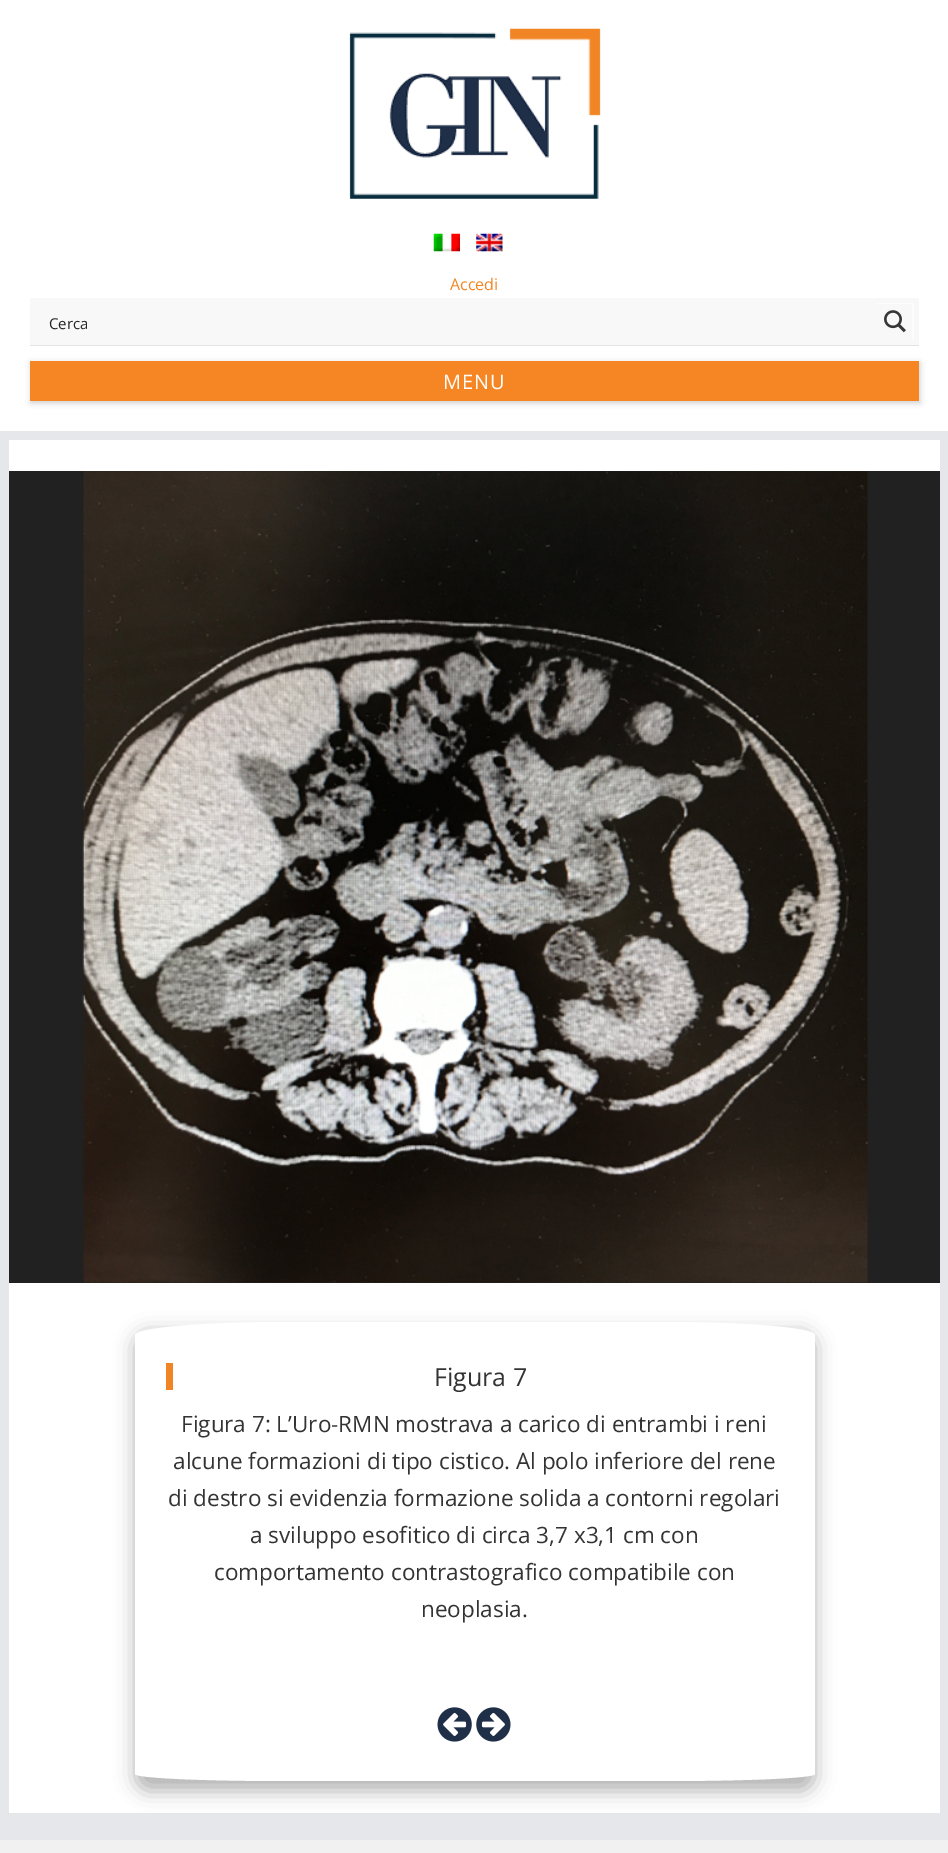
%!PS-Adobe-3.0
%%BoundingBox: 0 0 948 1853
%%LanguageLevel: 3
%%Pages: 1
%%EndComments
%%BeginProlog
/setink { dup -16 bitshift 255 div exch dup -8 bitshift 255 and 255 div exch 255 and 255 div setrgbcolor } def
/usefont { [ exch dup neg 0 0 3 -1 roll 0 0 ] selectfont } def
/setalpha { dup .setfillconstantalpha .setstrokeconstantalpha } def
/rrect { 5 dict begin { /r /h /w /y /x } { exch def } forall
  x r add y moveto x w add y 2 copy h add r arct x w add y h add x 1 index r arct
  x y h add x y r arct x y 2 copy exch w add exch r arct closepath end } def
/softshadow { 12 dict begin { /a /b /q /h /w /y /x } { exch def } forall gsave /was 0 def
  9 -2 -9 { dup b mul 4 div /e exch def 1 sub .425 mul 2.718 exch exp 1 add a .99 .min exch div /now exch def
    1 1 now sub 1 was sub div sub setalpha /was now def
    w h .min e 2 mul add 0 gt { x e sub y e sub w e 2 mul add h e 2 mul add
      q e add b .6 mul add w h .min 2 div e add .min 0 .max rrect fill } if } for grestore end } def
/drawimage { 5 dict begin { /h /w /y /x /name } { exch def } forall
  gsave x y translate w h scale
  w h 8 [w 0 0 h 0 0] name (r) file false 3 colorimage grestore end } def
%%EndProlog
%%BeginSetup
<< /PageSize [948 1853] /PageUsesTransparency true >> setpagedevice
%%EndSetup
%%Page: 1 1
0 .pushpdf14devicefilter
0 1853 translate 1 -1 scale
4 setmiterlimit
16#F1F1F1 setink
0 0 948 1853 rectfill
16#FFFFFF setink
0 0 948 431 rectfill
(img1.raw) 349 28 252 171 drawimage
(img2.raw) 433 233 27 19 drawimage
(img3.raw) 476 233 27 19 drawimage
/OpenSans-Regular 16 usefont
16#F18525 setink
450 290 moveto (Accedi) show
16#E4E4E4 setink
30 345 moveto 30 346 lineto 919 346 lineto 919 299 lineto 919 345 lineto closepath fill
16#F8F8F8 setink
30 298 889 47 rectfill
/OpenSans-Regular 15 usefont
16#252525 setink
49 329 moveto (Cerca) show
gsave
876 303 38 37 rectclip
16#FCFCFC setink
752 179 moveto 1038 179 lineto 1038 464 lineto 752 464 lineto closepath 875 304 moveto 912 304 lineto 912 341 lineto 875 341 lineto closepath eofill
grestore
(img4.raw) 884 310 22 23 drawimage
16#CCCCCC setink
31 363 889 40 0 3 1 softshadow
16#F68623 setink
30 361 889 40 rectfill
/OpenSans-Regular 20 usefont
16#FFFFFF setink
443 389 moveto 1 0 (MENU) ashow
[
    [0 431 948 1409 16#E5E7EA]
    [9 440 931 1373 16#FFFFFF]
    [9 471 931 812 16#212121]
] { aload pop setink rectfill } forall
(img5.raw) 82 471 786 812 drawimage
16#000000 setink
135 1333 680 458 13 10 0.3 softshadow
16#FFFFFF setink
285 1322 moveto 665 1322 lineto 748 1322 815 1328 815 1335 curveto 815 1774 lineto 815 1778 748 1781 665 1781 curveto 285 1781 lineto 202 1781 135 1778 135 1774 curveto 135 1335 lineto 135 1328 202 1322 285 1322 curveto closepath fill
16#F18525 setink
166 1363 7 27 rectfill
/OpenSans-Regular 25 usefont
16#333333 setink
434 1386 moveto (Figura 7) show
/OpenSans-Regular 22.5 usefont
[
    [(Figura 7: L’Uro-RMN mostrava a carico di entrambi i reni) 181 1432]
    [(alcune formazioni di tipo cistico. Al polo inferiore del rene) 173 1469]
    [(di destro si evidenzia formazione solida a contorni regolari) 168 1506]
    [(a sviluppo esofitico di circa 3,7 x3,1 cm con) 250 1543]
    [(comportamento contrastografico compatibile con) 214 1580]
    [(neoplasia.) 421 1617]
] { aload pop moveto show } forall
(img6.raw) 437 1707 35 35 drawimage
(img7.raw) 476 1707 35 35 drawimage
.poppdf14devicefilter showpage
%%EOF
